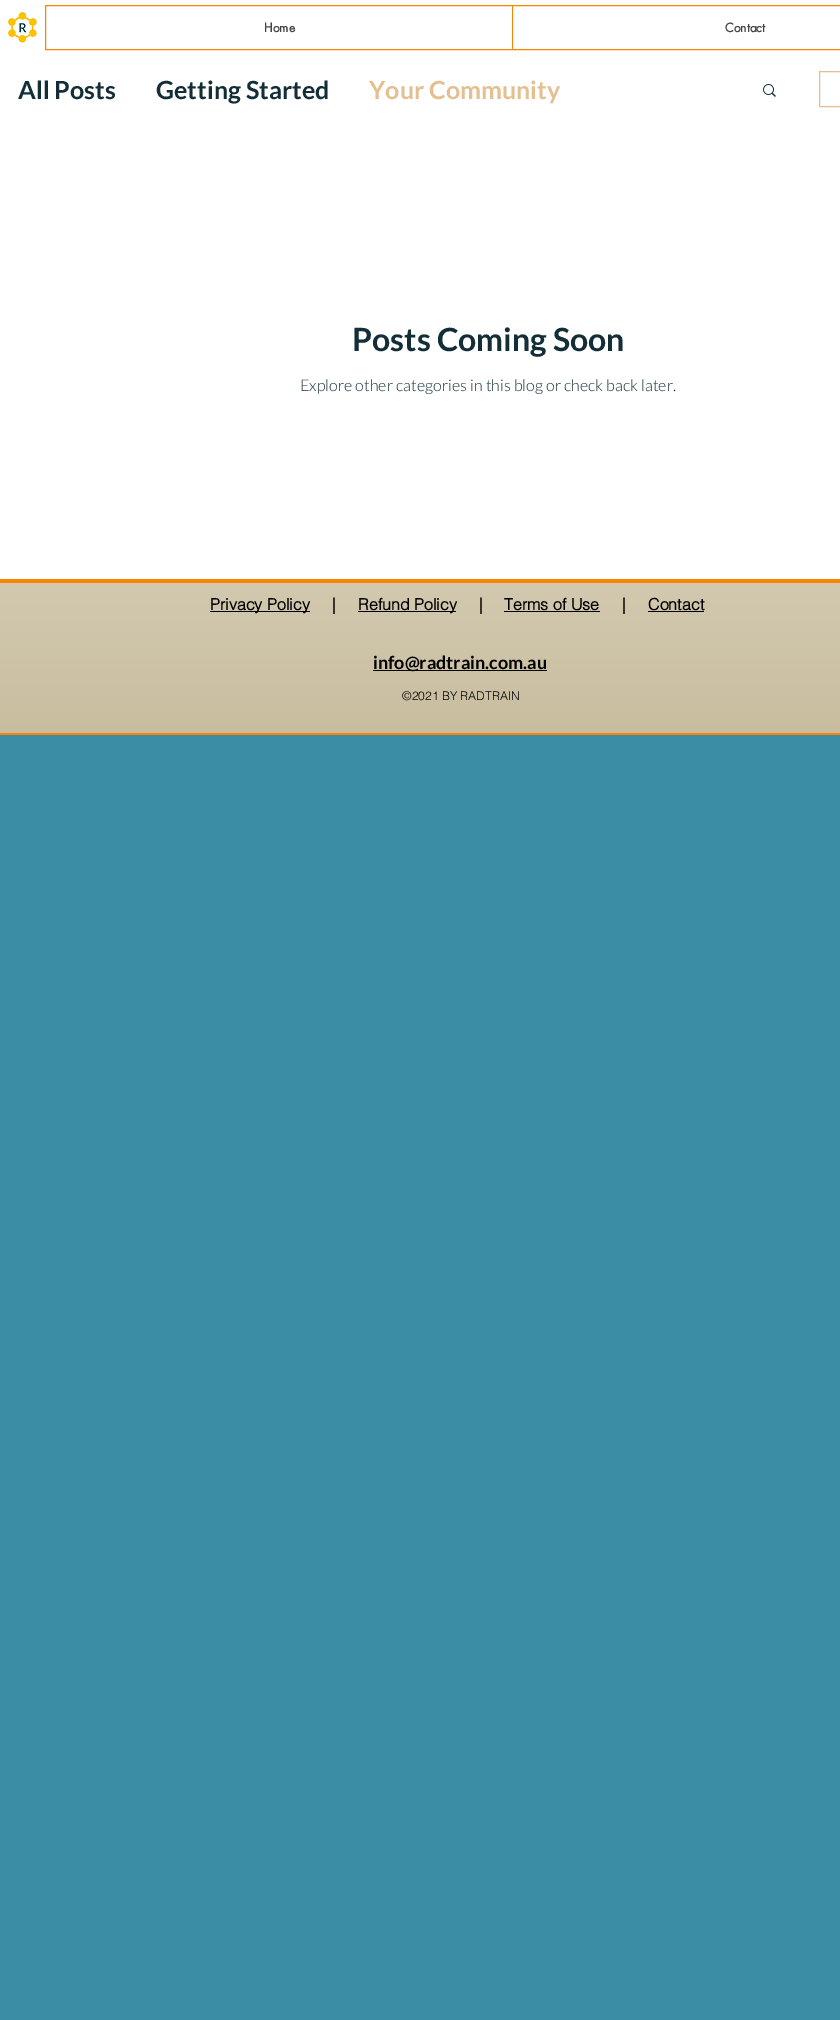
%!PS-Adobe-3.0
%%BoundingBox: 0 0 840 2020
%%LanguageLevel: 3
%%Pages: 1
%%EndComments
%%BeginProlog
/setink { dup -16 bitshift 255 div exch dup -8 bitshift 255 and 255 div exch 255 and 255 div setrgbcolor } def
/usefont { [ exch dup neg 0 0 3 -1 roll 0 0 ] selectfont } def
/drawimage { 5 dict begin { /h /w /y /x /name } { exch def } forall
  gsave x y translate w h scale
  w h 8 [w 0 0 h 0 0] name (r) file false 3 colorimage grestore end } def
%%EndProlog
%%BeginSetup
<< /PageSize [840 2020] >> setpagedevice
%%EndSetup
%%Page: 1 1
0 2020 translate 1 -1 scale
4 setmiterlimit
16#3B8CA5 setink
0 0 840 2020 rectfill
16#FFFFFF setink
0 0 840 5 rectfill
(img1.raw) 0 5 45 44 drawimage
0 49 840 530 rectfill
45.5 5.5 moveto 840.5 5.5 lineto 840.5 49.5 lineto 45.5 49.5 lineto closepath gsave fill grestore
16#FF8300 setink
stroke
/futura-Bold 12 usefont
16#444444 setink
264 32 moveto (Home) show
16#FF8300 setink
512 6 1 43 rectfill
16#444444 setink
725 32 moveto (Contact) show
/Lato-Bold 25 usefont
16#132E37 setink
18 99 moveto (All Posts) show
156 99 moveto (Getting Started) show
16#E4BF8F setink
369 99 moveto (Your Community) show
(img2.raw) 763 84 13 13 drawimage
819.5 71.5 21 35 rectstroke
/Lato-Bold 32 usefont
16#132E37 setink
352 351 moveto (Posts Coming Soon) show
/Lato-Light 16 usefont
300 391 moveto (Explore other categories in this blog or check back later.) show
16#C2B593 setink
0 583 840 150 rectfill
(img3.raw) 0 583 840 150 drawimage
[
    [0 579 840 4 16#FF8300]
    [0 733 840 2 16#FF8300]
    [210 611 100 1 16#000000]
] { aload pop setink rectfill } forall
/helvetica-Bold 16 usefont
210 610 moveto (Privacy Policy) show
332 610 moveto (|) show
358 611 98 1 rectfill
[
    [(Refund Policy) 358 610]
    [(|) 479 610]
    [(Terms of Use) 504 610]
] { aload pop moveto show } forall
504 611 96 1 rectfill
622 610 moveto (|) show
648 610 moveto (Contact) show
648 611 56 1 rectfill
373 670 174 1 rectfill
/Lato-Bold 18 usefont
373 669 moveto (info@radtrain.com.au) show
/helvetica-Light 12 usefont
402 700 moveto (©2021 BY RADTRAIN) show
showpage
%%EOF
